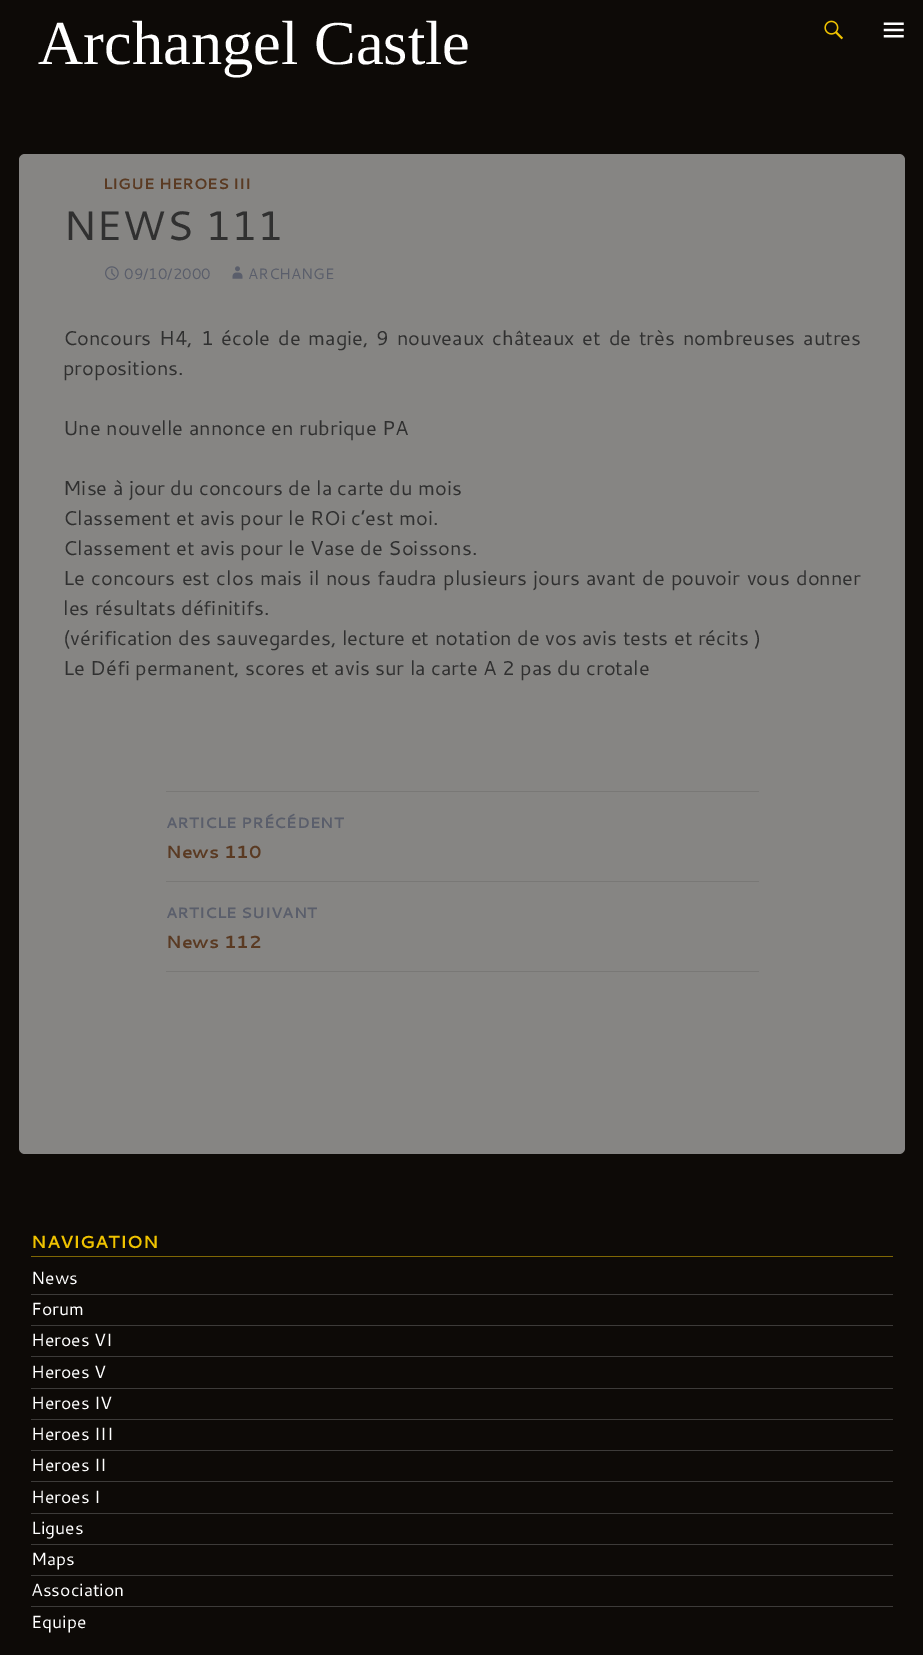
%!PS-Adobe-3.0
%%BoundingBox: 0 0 923 1655
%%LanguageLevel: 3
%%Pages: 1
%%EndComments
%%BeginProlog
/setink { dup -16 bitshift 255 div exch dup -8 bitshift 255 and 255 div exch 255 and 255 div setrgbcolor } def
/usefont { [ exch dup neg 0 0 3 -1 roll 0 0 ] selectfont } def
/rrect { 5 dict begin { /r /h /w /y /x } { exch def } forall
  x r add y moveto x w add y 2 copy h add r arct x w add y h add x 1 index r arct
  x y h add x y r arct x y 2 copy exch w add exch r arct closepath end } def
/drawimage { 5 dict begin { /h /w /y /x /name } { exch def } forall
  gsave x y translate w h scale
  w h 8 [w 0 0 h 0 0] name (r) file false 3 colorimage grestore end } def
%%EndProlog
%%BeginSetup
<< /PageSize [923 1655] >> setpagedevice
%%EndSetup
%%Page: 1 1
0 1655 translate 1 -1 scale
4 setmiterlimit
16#0D0A07 setink
0 0 923 1655 rectfill
/LiberationSerif-Regular 62.5 usefont
16#FFFFFF setink
38 64 moveto (Archangel Castle) show
(img1.raw) 824 20 19 20 drawimage
(img2.raw) 883 22 21 16 drawimage
16#868583 setink
19 154 886 1000 6 rrect fill
/Cantarell-Bold 15 usefont
16#5A3A22 setink
103 189 moveto (LIGUE HEROES III) show
/Cantarell-Regular 41.25 usefont
16#303030 setink
63 240 moveto (NEWS 111) show
(img3.raw) 105 266 14 14 drawimage
/Cantarell-Regular 15 usefont
16#5A5E6B setink
124 279 moveto (09/10/2000) show
(img4.raw) 232 266 11 13 drawimage
248 279 moveto (ARCHANGE) show
/Cantarell-Regular 20 usefont
16#303030 setink
63 345 moveto 2.4 0 32 (Concours H4, 1 école de magie, 9 nouveaux châteaux et de très nombreuses autres) widthshow
[
    [(propositions.) 63 375]
    [(Une nouvelle annonce en rubrique PA) 63 435]
    [(Mise à jour du concours de la carte du mois) 63 495]
    [(Classement et avis pour le ROi c’est moi.) 63 525]
    [(Classement et avis pour le Vase de Soissons.) 63 555]
] { aload pop moveto show } forall
63 585 moveto 1 0 32 (Le concours est clos mais il nous faudra plusieurs jours avant de pouvoir vous donner) widthshow
[
    [(les résultats définitifs.) 63 615]
    [(\(vérification des sauvegardes, lecture et notation de vos avis tests et récits \)) 63 645]
    [(Le Défi permanent, scores et avis sur la carte A 2 pas du crotale) 63 675]
] { aload pop moveto show } forall
16#797876 setink
166 791 593 1 rectfill
166 881 593 1 rectfill
/Cantarell-Bold 15 usefont
16#5A5E6B setink
166 828 moveto (ARTICLE PRÉCÉDENT) show
/Cantarell-Bold 17.5 usefont
16#5A3A22 setink
166 858 moveto (News 110) show
16#797876 setink
166 971 593 1 rectfill
/Cantarell-Bold 15 usefont
16#5A5E6B setink
166 918 moveto (ARTICLE SUIVANT) show
/Cantarell-Bold 17.5 usefont
16#5A3A22 setink
166 948 moveto (News 112) show
16#7F6704 setink
31 1256 862 1 rectfill
16#F0C300 setink
31 1248 moveto (NAVIGATION) show
/Cantarell-Regular 17.5 usefont
16#FFFFFF setink
31 1284 moveto (News) show
16#3D3B39 setink
31 1294 862 1 rectfill
16#FFFFFF setink
31 1315 moveto (Forum) show
16#3D3B39 setink
31 1325 862 1 rectfill
16#FFFFFF setink
31 1346 moveto (Heroes VI) show
16#3D3B39 setink
31 1356 862 1 rectfill
16#FFFFFF setink
31 1378 moveto (Heroes V) show
16#3D3B39 setink
31 1388 862 1 rectfill
16#FFFFFF setink
31 1409 moveto (Heroes IV) show
16#3D3B39 setink
31 1419 862 1 rectfill
16#FFFFFF setink
31 1440 moveto (Heroes III) show
16#3D3B39 setink
31 1450 862 1 rectfill
16#FFFFFF setink
31 1471 moveto (Heroes II) show
16#3D3B39 setink
31 1481 862 1 rectfill
16#FFFFFF setink
31 1503 moveto (Heroes I) show
16#3D3B39 setink
31 1513 862 1 rectfill
16#FFFFFF setink
31 1534 moveto (Ligues) show
16#3D3B39 setink
31 1544 862 1 rectfill
16#FFFFFF setink
31 1565 moveto (Maps) show
16#3D3B39 setink
31 1575 862 1 rectfill
16#FFFFFF setink
31 1596 moveto (Association) show
16#3D3B39 setink
31 1606 862 1 rectfill
16#FFFFFF setink
31 1628 moveto (Equipe) show
showpage
%%EOF
